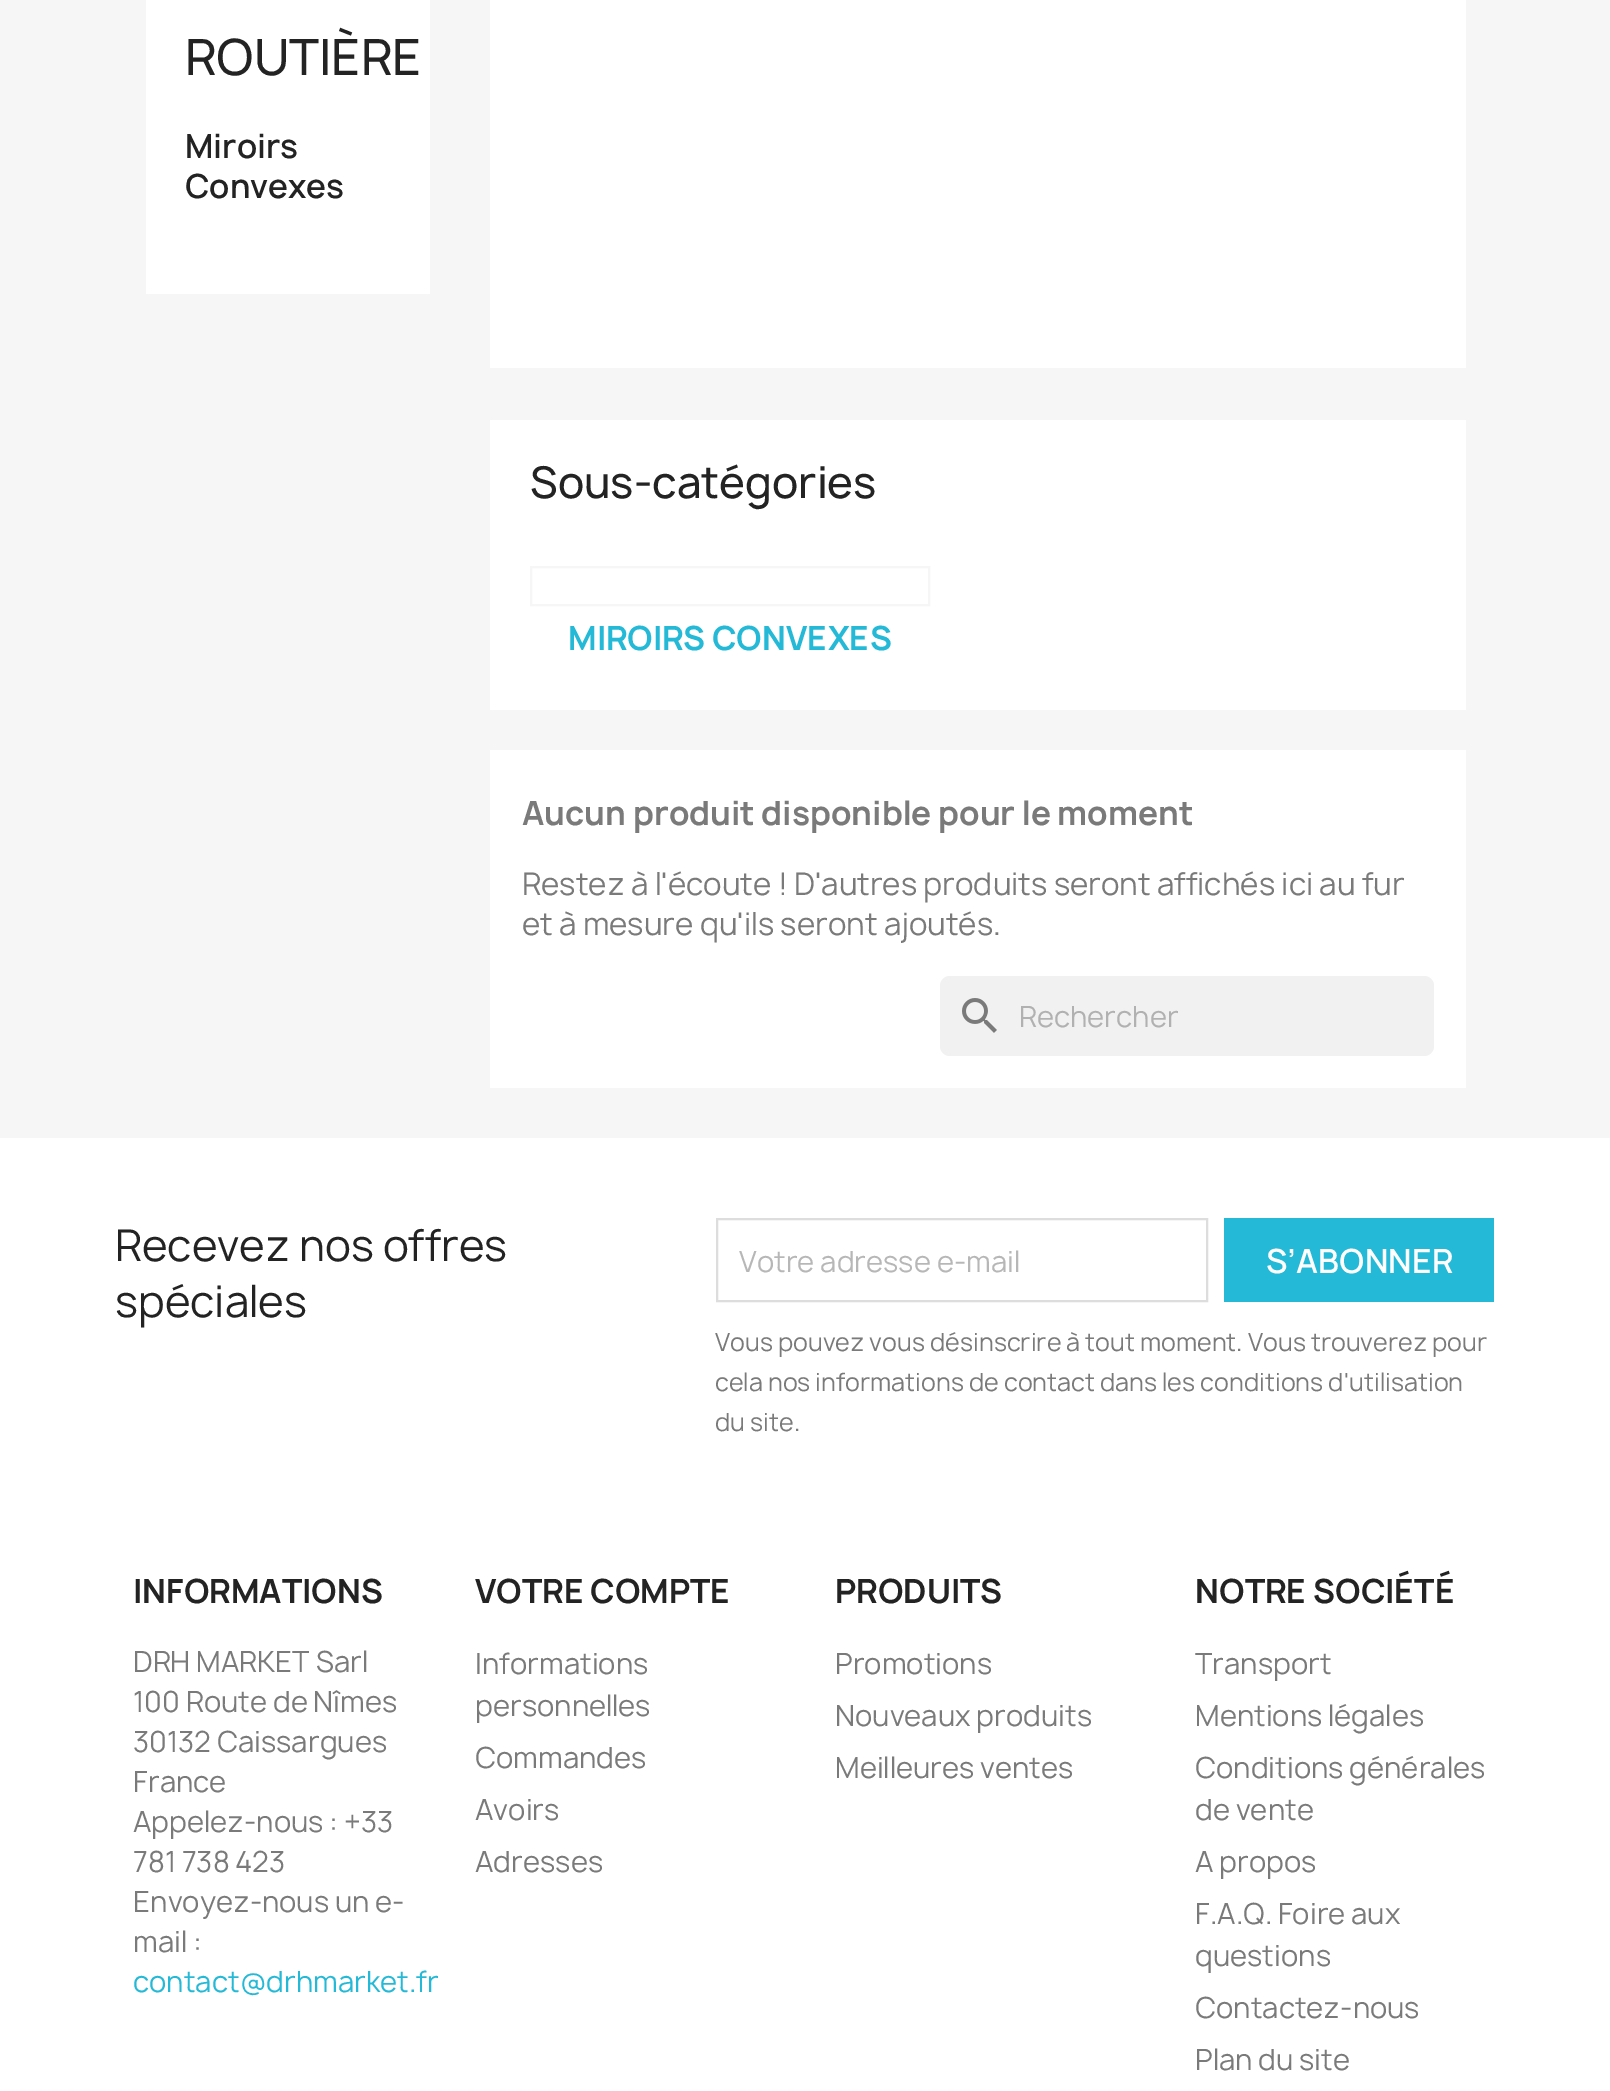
%!PS-Adobe-3.0
%%BoundingBox: 0 0 1610 2091
%%LanguageLevel: 3
%%Pages: 1
%%EndComments
%%BeginProlog
/setink { dup -16 bitshift 255 div exch dup -8 bitshift 255 and 255 div exch 255 and 255 div setrgbcolor } def
/usefont { [ exch dup neg 0 0 3 -1 roll 0 0 ] selectfont } def
/rrect { 5 dict begin { /r /h /w /y /x } { exch def } forall
  x r add y moveto x w add y 2 copy h add r arct x w add y h add x 1 index r arct
  x y h add x y r arct x y 2 copy exch w add exch r arct closepath end } def
/drawimage { 5 dict begin { /h /w /y /x /name } { exch def } forall
  gsave x y translate w h scale
  w h 8 [w 0 0 h 0 0] name (r) file false 3 colorimage grestore end } def
%%EndProlog
%%BeginSetup
<< /PageSize [1610 2091] >> setpagedevice
%%EndSetup
%%Page: 1 1
0 2091 translate 1 -1 scale
4 setmiterlimit
16#FFFFFF setink
0 0 1610 2091 rectfill
16#F6F6F6 setink
0 0 1610 1138 rectfill
16#FFFFFF setink
146 0 284 294 rectfill
/Manrope-Medium 48 usefont
16#232323 setink
185 75 moveto (ROUTIÈRE) show
/Manrope-SemiBold 32 usefont
185 158 moveto (Miroirs) show
185 198 moveto (Convexes) show
16#FFFFFF setink
490 0 976 368 rectfill
490 420 976 290 rectfill
/Manrope-Medium 42 usefont
16#232323 setink
530 498 moveto (Sous-catégories) show
16#F6F6F6 setink
2 setlinewidth
531 567 398 38 rectstroke
/Manrope-Bold 32 usefont
16#24B9D7 setink
568 650 moveto (MIROIRS CONVEXES) show
16#FFFFFF setink
490 750 976 338 rectfill
16#7A7A7A setink
522 825 moveto (Aucun produit disponible pour le moment) show
/Manrope-Regular 30 usefont
522 895 moveto (Restez à l'écoute ! D'autres produits seront affichés ici au fur) show
522 935 moveto (et à mesure qu'ils seront ajoutés.) show
16#F1F1F1 setink
940 976 494 80 10 rrect fill
(img1.raw) 962 998 35 35 drawimage
/Manrope-Regular 28 usefont
16#B1B1B1 setink
1019 1027 moveto (Rechercher) show
/Manrope-Regular 42 usefont
16#232323 setink
115 1261 moveto (Recevez nos offres) show
115 1317 moveto (spéciales) show
16#DDDDDD setink
717 1219 490 82 rectstroke
/Manrope-Regular 28 usefont
16#B7B7B7 setink
739 1272 moveto (Votre adresse e-mail) show
16#24B9D7 setink
1224 1218 270 84 rectfill
/Manrope-SemiBold 32 usefont
16#FFFFFF setink
1266 1273 moveto (S’ABONNER) show
/Manrope-Regular 24 usefont
16#7A7A7A setink
[
    [(Vous pouvez vous désinscrire à tout moment. Vous trouverez pour) 715 1351]
    [(cela nos informations de contact dans les conditions d'utilisation) 715 1391]
    [(du site.) 715 1431]
] { aload pop moveto show } forall
/Manrope-Bold 32 usefont
16#232323 setink
133 1603 moveto (INFORMATIONS) show
/Manrope-Regular 28 usefont
16#7A7A7A setink
[
    [(DRH MARKET Sarl) 133 1672]
    [(100 Route de Nîmes) 133 1712]
    [(30132 Caissargues) 133 1752]
    [(France) 133 1792]
    [(Appelez-nous : +33) 133 1832]
    [(781 738 423) 133 1872]
    [(Envoyez-nous un e-) 133 1912]
    [(mail :) 133 1952]
] { aload pop moveto show } forall
16#24B9D7 setink
133 1992 moveto (contact@drhmarket.fr) show
/Manrope-Bold 32 usefont
16#232323 setink
475 1603 moveto (VOTRE COMPTE) show
/Manrope-Regular 28 usefont
16#7A7A7A setink
[
    [(Informations) 475 1674]
    [(personnelles) 475 1716]
    [(Commandes) 475 1768]
    [(Avoirs) 475 1820]
    [(Adresses) 475 1872]
] { aload pop moveto show } forall
/Manrope-Bold 32 usefont
16#232323 setink
835 1603 moveto (PRODUITS) show
/Manrope-Regular 28 usefont
16#7A7A7A setink
[
    [(Promotions) 835 1674]
    [(Nouveaux produits) 835 1726]
    [(Meilleures ventes) 835 1778]
] { aload pop moveto show } forall
/Manrope-Bold 32 usefont
16#232323 setink
1195 1603 moveto (NOTRE SOCIÉTÉ) show
/Manrope-Regular 28 usefont
16#7A7A7A setink
[
    [(Transport) 1195 1674]
    [(Mentions légales) 1195 1726]
    [(Conditions générales) 1195 1778]
    [(de vente) 1195 1820]
    [(A propos) 1195 1872]
    [(F.A.Q. Foire aux) 1195 1924]
    [(questions) 1195 1966]
    [(Contactez-nous) 1195 2018]
    [(Plan du site) 1195 2070]
] { aload pop moveto show } forall
showpage
%%EOF
